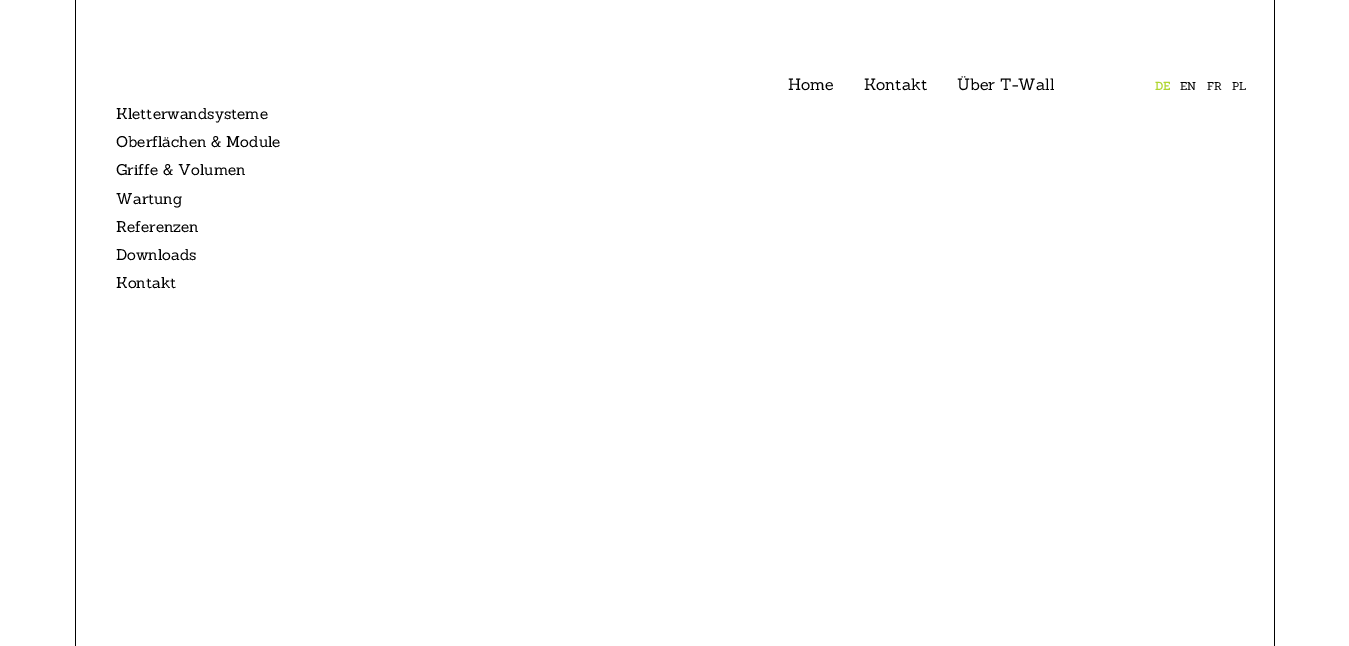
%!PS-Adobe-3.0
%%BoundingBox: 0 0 1349 646
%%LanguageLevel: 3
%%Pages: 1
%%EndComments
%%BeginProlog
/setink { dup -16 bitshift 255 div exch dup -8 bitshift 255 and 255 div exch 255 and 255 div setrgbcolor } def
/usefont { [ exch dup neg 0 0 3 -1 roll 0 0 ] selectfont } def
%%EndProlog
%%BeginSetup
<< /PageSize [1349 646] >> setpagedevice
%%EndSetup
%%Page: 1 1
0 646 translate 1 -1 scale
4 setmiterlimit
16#FFFFFF setink
0 0 1349 646 rectfill
16#000000 setink
1274 0 1 646 rectfill
75 0 1 646 rectfill
/Sanchez-Regular 16 usefont
[
    [(Home) 788 90]
    [(Kontakt) 864 90]
    [(Über T-Wall) 957 90]
] { aload pop moveto show } forall
/Sanchez-Bold 11 usefont
16#AFD62E setink
1155 90 moveto (DE) show
/Sanchez-Regular 11 usefont
16#000000 setink
[
    [(EN) 1180 90]
    [(FR) 1207 90]
    [(PL) 1232 90]
] { aload pop moveto show } forall
/Sanchez-Regular 15.25 usefont
[
    [(Kletterwandsysteme) 116 119]
    [(Oberflächen & Module) 116 147]
    [(Griffe & Volumen) 116 175]
    [(Wartung) 116 204]
    [(Referenzen) 116 232]
    [(Downloads) 116 260]
    [(Kontakt) 116 288]
] { aload pop moveto show } forall
showpage
%%EOF
